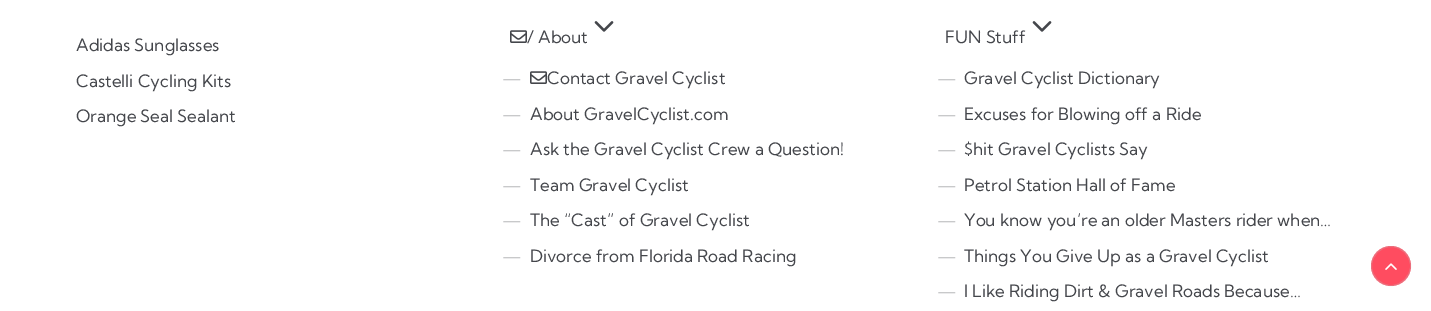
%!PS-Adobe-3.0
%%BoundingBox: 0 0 1431 311
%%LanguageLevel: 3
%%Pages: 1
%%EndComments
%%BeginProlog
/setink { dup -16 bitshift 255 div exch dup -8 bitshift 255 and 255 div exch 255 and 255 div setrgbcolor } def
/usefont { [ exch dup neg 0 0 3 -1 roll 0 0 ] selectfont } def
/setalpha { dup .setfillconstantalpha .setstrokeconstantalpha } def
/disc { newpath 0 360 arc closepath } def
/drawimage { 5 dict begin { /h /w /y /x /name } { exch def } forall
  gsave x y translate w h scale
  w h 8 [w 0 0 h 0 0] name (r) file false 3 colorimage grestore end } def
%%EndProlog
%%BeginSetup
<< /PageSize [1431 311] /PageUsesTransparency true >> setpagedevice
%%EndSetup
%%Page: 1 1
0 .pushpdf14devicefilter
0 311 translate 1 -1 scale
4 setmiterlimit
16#FFFFFF setink
0 0 1431 311 rectfill
/KumbhSans-Regular 17 usefont
16#44464B setink
[
    [(Adidas Sunglasses) 76 51]
    [(Castelli Cycling Kits) 76 87]
    [(Orange Seal Sealant) 76 122]
] { aload pop moveto show } forall
(img1.raw) 594 21 20 11 drawimage
(img2.raw) 510 30 17 13 drawimage
527 43 moveto (/ About) show
16#B4B5B7 setink
502 84 moveto (—) show
(img2.raw) 530 71 17 13 drawimage
16#44464B setink
547 84 moveto (Contact Gravel Cyclist) show
16#B4B5B7 setink
502 120 moveto (—) show
16#44464B setink
530 120 moveto (About GravelCyclist.com) show
16#B4B5B7 setink
502 155 moveto (—) show
16#44464B setink
530 155 moveto (Ask the Gravel Cyclist Crew a Question!) show
16#B4B5B7 setink
502 191 moveto (—) show
16#44464B setink
530 191 moveto (Team Gravel Cyclist) show
16#B4B5B7 setink
502 226 moveto (—) show
16#44464B setink
530 226 moveto (The “Cast” of Gravel Cyclist) show
16#B4B5B7 setink
502 262 moveto (—) show
16#44464B setink
530 262 moveto (Divorce from Florida Road Racing) show
(img1.raw) 1032 21 20 11 drawimage
945 43 moveto (FUN Stuff) show
16#B4B5B7 setink
937 84 moveto (—) show
16#44464B setink
964 84 moveto (Gravel Cyclist Dictionary) show
16#B4B5B7 setink
937 120 moveto (—) show
16#44464B setink
964 120 moveto (Excuses for Blowing off a Ride) show
16#B4B5B7 setink
937 155 moveto (—) show
16#44464B setink
964 155 moveto ($hit Gravel Cyclists Say) show
16#B4B5B7 setink
937 191 moveto (—) show
16#44464B setink
964 191 moveto (Petrol Station Hall of Fame) show
16#B4B5B7 setink
937 226 moveto (—) show
16#44464B setink
964 226 moveto (You know you’re an older Masters rider when…) show
16#B4B5B7 setink
937 262 moveto (—) show
16#44464B setink
964 262 moveto (Things You Give Up as a Gravel Cyclist) show
16#B4B5B7 setink
937 297 moveto (—) show
16#44464B setink
964 297 moveto (I Like Riding Dirt & Gravel Roads Because…) show
16#FF4C60 setink
1391 266 20 disc fill
0.3 setalpha
16#BEBEBE setink
1391 266 19.5 disc stroke
1 setalpha
(img3.raw) 1385 263 12 7 drawimage
.poppdf14devicefilter showpage
%%EOF
